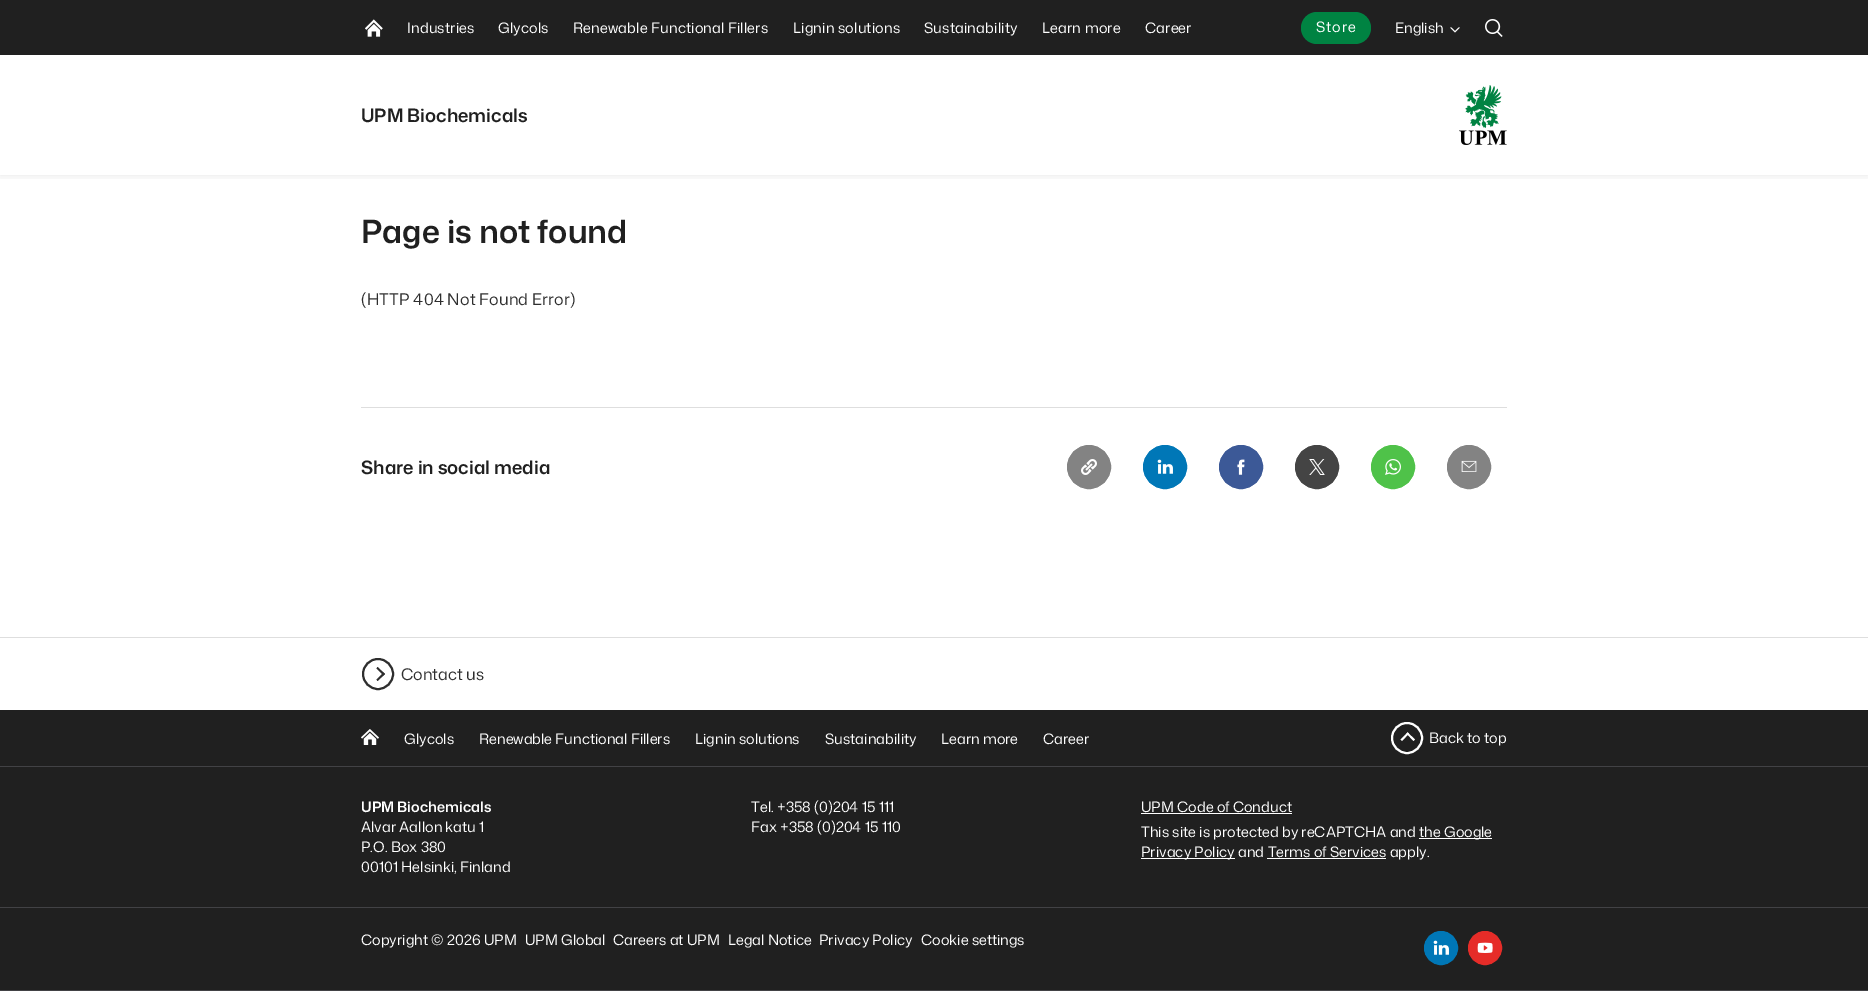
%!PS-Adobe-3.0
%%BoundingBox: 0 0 1868 991
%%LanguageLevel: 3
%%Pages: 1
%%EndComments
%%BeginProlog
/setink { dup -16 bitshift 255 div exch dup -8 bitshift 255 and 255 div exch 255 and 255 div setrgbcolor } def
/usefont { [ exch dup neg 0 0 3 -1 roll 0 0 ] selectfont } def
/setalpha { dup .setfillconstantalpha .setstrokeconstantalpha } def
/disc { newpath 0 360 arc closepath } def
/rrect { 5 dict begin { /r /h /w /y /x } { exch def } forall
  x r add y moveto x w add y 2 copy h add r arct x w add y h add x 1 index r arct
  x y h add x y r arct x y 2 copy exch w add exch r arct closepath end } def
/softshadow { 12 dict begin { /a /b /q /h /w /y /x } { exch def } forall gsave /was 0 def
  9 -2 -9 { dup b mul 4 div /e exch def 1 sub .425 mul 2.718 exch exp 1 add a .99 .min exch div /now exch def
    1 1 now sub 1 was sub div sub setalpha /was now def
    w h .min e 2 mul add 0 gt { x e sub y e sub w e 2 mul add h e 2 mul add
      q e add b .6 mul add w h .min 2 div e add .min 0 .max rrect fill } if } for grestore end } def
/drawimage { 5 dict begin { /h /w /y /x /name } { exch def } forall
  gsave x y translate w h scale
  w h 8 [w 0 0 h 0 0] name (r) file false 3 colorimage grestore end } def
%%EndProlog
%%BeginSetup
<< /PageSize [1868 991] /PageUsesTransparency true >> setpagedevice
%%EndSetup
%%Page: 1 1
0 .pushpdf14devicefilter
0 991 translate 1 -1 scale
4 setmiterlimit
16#FFFFFF setink
0 0 1868 991 rectfill
gsave
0 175 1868 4 rectclip
16#000000 setink
0 55 1868 120 0 5 0.1 softshadow
grestore
16#202020 setink
0 0 1868 55 rectfill
(img1.raw) 365 19 18 18 drawimage
/MonaSans-Regular 14.4 usefont
16#FFFFFF setink
407 33 moveto 0.15 0 (Industries) ashow
498 33 moveto 0.15 0 (Glycols) ashow
573 33 moveto 0.15 0 (Renewable Functional Fillers) ashow
793 33 moveto 0.15 0 (Lignin solutions) ashow
924 33 moveto 0.15 0 (Sustainability) ashow
1042 33 moveto 0.15 0 (Learn more) ashow
1145 33 moveto 0.15 0 (Career) ashow
16#008342 setink
1301 12 70 32 16 rrect fill
16#FFFFFF setink
1316 32 moveto 1 0 (Store) ashow
1395 33 moveto (English) show
1460 27.5 moveto 1455 32.5 lineto 1455 31 lineto 1458.5 27.5 lineto closepath 1455 32.5 moveto 1450 27.5 lineto 1451.5 27.5 lineto 1455 31 lineto closepath fill
(img2.raw) 1485 19 18 18 drawimage
/MonaSans-SemiBold 18.4 usefont
16#202020 setink
361 122 moveto (UPM Biochemicals) show
(img3.raw) 1459 85 48 60 drawimage
/MonaSans-SemiBold 32 usefont
361 243 moveto (Page is not found) show
/MonaSans-Regular 16 usefont
16#2E2E2E setink
361 305 moveto 0.15 0 (\(HTTP 404 Not Found Error\)) ashow
16#DEDEDE setink
361 407 1146 1 rectfill
/MonaSans-SemiBold 18.4 usefont
16#202020 setink
361 474 moveto (Share in social media) show
16#838383 setink
1089 467 21.5 disc gsave fill grestore
stroke
(img4.raw) 1081 459 16 16 drawimage
16#0077B7 setink
1165 467 21.5 disc gsave fill grestore
stroke
(img5.raw) 1157 459 16 15 drawimage
16#3C5997 setink
1241 467 21.5 disc gsave fill grestore
stroke
(img6.raw) 1237 459 8 16 drawimage
16#444444 setink
1317 467 21.5 disc gsave fill grestore
stroke
(img7.raw) 1309 459 16 16 drawimage
16#4FC249 setink
1393 467 21.5 disc gsave fill grestore
stroke
(img8.raw) 1385 459 16 16 drawimage
16#838383 setink
1469 467 21.5 disc gsave fill grestore
stroke
(img9.raw) 1461 460 16 12 drawimage
16#DEDEDE setink
0 637 1868 1 rectfill
16#2E2E2E setink
2 setlinewidth
378 674 15 disc stroke
376.5 668.5 moveto 377.5 667 lineto 385 674 lineto 383.5 675.5 lineto closepath fill
376.5 679.5 moveto 383.5 672.5 lineto 385 674 lineto 377.5 681 lineto closepath fill
/MonaSans-Regular 16 usefont
401 680 moveto (Contact us) show
16#202020 setink
0 710 1868 280 rectfill
16#424245 setink
0 766 1868 1 rectfill
(img10.raw) 361 729 18 16 drawimage
/MonaSans-Regular 14.4 usefont
16#FFFFFF setink
[
    [(Glycols) 404 744]
    [(Renewable Functional Fillers) 479 744]
    [(Lignin solutions) 695 744]
    [(Sustainability) 825 744]
    [(Learn more) 941 744]
    [(Career) 1043 744]
] { aload pop moveto show } forall
1407 738 15 disc stroke
1402 741 moveto 1400.5 739.5 lineto 1407.5 732.5 lineto 1409 733.5 lineto closepath fill
1413.5 741 moveto 1406.5 733.5 lineto 1407.5 732.5 lineto 1415 739.5 lineto closepath fill
1429 743 moveto (Back to top) show
16#424245 setink
0 907 1868 1 rectfill
/MonaSans-SemiBold 14.4 usefont
16#FFFFFF setink
361 812 moveto (UPM Biochemicals) show
/MonaSans-Regular 14.4 usefont
[
    [(Alvar Aallon katu 1) 361 832]
    [(P.O. Box 380) 361 852]
    [(00101 Helsinki, Finland) 361 872]
    [(Tel. +358 \(0\)204 15 111) 751 812]
    [(Fax +358 \(0\)204 15 110) 751 832]
    [(UPM Code of Conduct) 1141 812]
] { aload pop moveto show } forall
1141 813 151 1 rectfill
1141 837 moveto (This site is protected by reCAPTCHA and) show
1419 838 73 1 rectfill
1419 837 moveto (the Google) show
1141 858 94 1 rectfill
1141 857 moveto (Privacy Policy and Terms of Services apply.) show
1267 858 119 1 rectfill
16#424245 setink
0 990 1868 1 rectfill
16#FFFFFF setink
[
    [(Copyright © 2026 UPM) 361 945]
    [(UPM Global) 525 945]
    [(Careers at UPM) 613 945]
    [(Legal Notice) 728 945]
    [(Privacy Policy) 819 945]
    [(Cookie settings) 921 945]
] { aload pop moveto show } forall
16#0077B7 setink
1441 948 16.5 disc gsave fill grestore
1 setlinewidth
stroke
(img5.raw) 1433 940 16 15 drawimage
16#E62C28 setink
1485 948 16.5 disc gsave fill grestore
stroke
(img11.raw) 1477 942 16 11 drawimage
.poppdf14devicefilter showpage
%%EOF
